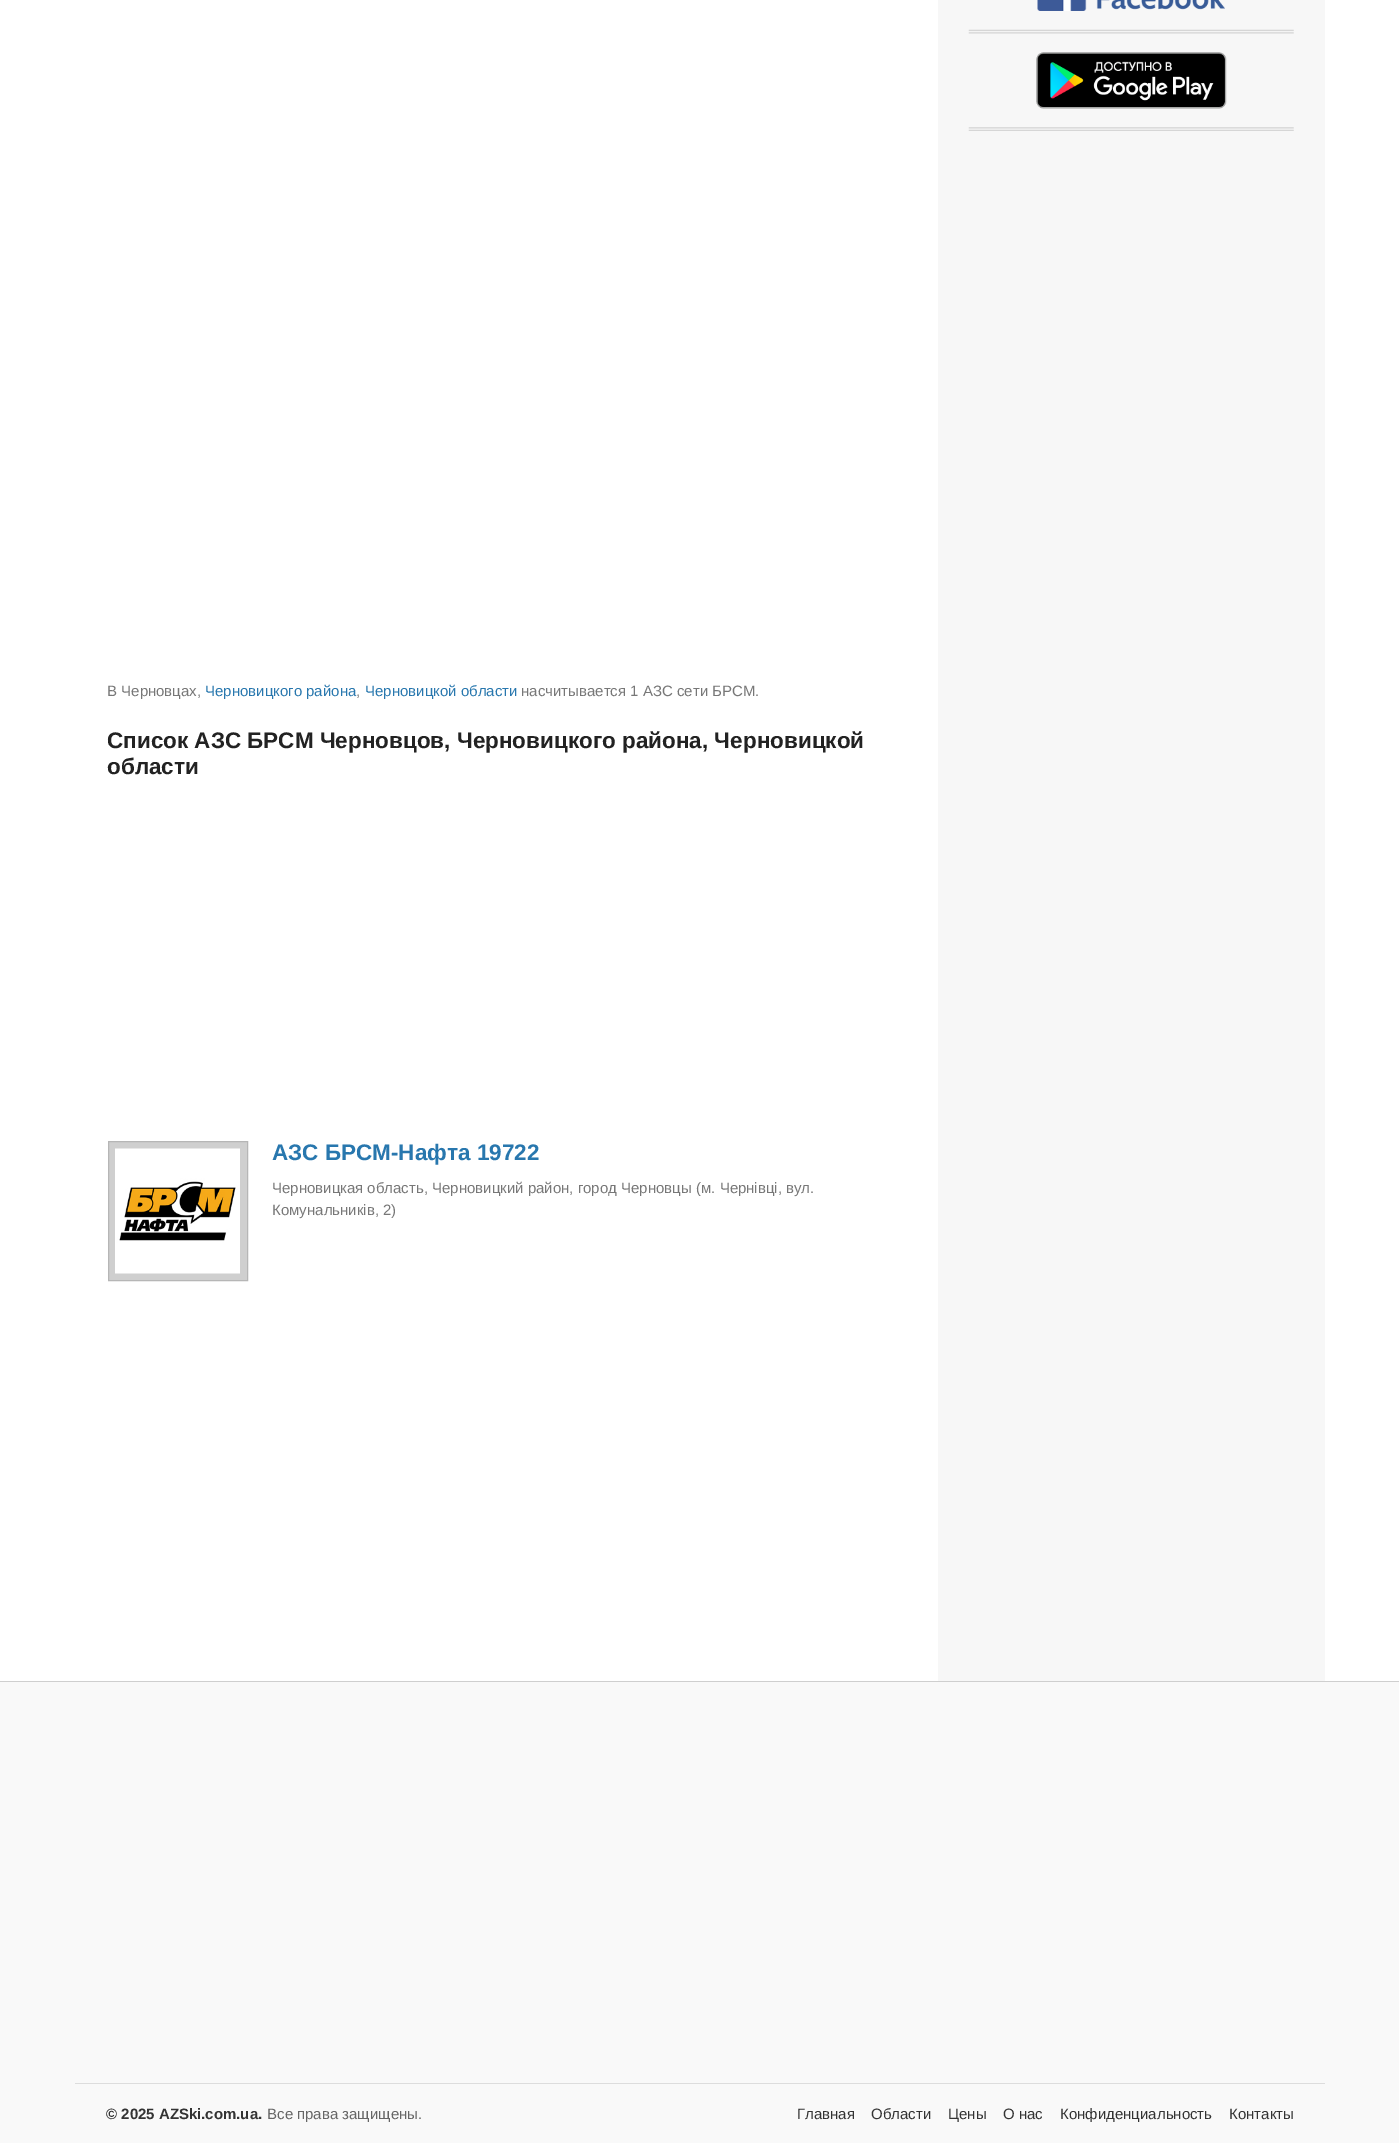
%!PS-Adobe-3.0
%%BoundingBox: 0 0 1399 2143
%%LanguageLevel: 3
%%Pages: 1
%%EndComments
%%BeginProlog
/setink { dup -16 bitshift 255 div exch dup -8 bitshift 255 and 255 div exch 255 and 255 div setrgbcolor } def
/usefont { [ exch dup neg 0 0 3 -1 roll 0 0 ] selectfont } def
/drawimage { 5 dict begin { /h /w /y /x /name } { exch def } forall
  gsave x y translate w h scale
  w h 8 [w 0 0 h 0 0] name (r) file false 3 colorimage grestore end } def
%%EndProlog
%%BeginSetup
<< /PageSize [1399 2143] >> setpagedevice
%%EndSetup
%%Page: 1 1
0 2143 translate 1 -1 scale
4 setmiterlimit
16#FFFFFF setink
0 0 1399 2143 rectfill
/LiberationSans-Regular 15 usefont
16#777777 setink
107 696 moveto (В Черновцах,) show
16#2877AE setink
205 696 moveto (Черновицкого района) show
16#777777 setink
356 696 moveto (,) show
16#2877AE setink
365 696 moveto (Черновицкой области) show
16#777777 setink
521 696 moveto (насчитывается 1 АЗС сети БРСМ.) show
/LiberationSans-Bold 22.5 usefont
16#222222 setink
107 748 moveto (Список АЗС БРСМ Черновцов, Черновицкого района, Черновицкой) show
107 774 moveto (области) show
16#CFCFCF setink
108.5 1141.5 moveto 247.5 1141.5 lineto 247.5 1280.5 lineto 108.5 1280.5 lineto closepath gsave fill grestore
16#B6B6B6 setink
stroke
(img1.raw) 115 1148 125 126 drawimage
16#2877AE setink
272 1160 moveto (АЗС БРСМ-Нафта 19722) show
/LiberationSans-Regular 15 usefont
16#777777 setink
272 1193 moveto (Черновицкая область, Черновицкий район, город Черновцы \(м. Чернівці, вул.) show
272 1215 moveto (Комунальників, 2\)) show
16#F7F7F7 setink
938 0 387 1681 rectfill
(img2.raw) 1037 0 188 11 drawimage
(img3.raw) 968 29 326 5 drawimage
(img4.raw) 1036 52 191 57 drawimage
(img5.raw) 968 127 326 4 drawimage
[
    [0 1682 1399 461 16#F9F9F9]
    [0 1681 1399 1 16#CFCFCF]
    [75 2083 1250 1 16#DDDDDD]
] { aload pop setink rectfill } forall
/LiberationSans-Bold 15 usefont
16#333333 setink
106 2119 moveto (© 2025 AZSki.com.ua.) show
/LiberationSans-Regular 15 usefont
16#666666 setink
267 2119 moveto (Все права защищены.) show
16#333333 setink
[
    [(Главная) 797 2119]
    [(Области) 871 2119]
    [(Цены) 948 2119]
    [(О нас) 1003 2119]
    [(Конфиденциальность) 1060 2119]
    [(Контакты) 1229 2119]
] { aload pop moveto show } forall
showpage
%%EOF
